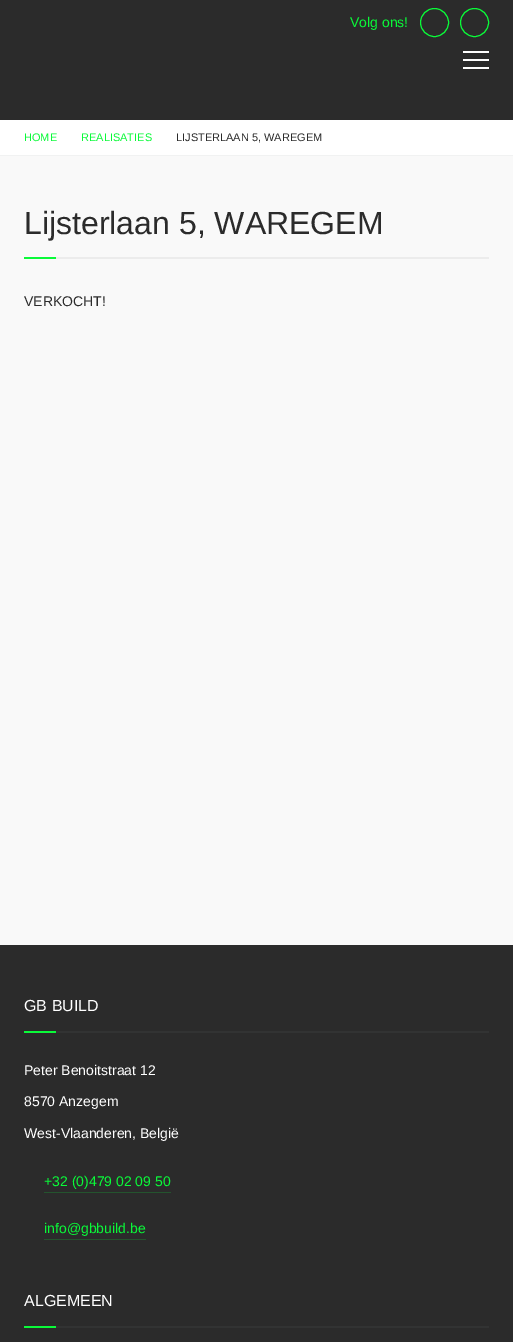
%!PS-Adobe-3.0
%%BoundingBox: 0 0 513 1342
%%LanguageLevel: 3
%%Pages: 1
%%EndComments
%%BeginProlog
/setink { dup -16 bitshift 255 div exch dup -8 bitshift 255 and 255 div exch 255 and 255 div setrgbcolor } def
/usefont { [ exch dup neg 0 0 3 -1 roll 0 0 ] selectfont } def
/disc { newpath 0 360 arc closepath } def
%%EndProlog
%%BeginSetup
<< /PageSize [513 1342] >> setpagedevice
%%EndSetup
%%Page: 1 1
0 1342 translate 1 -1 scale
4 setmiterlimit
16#F9F9F9 setink
0 0 513 1342 rectfill
16#2B2B2B setink
0 0 513 120 rectfill
/LiberationSans-Regular 14 usefont
16#0AFA39 setink
350 27 moveto (Volg ons!) show
434.5 22.5 14 disc stroke
474.5 22.5 14 disc stroke
[
    [463 59 26 2 16#FFFFFF]
    [463 51 26 2 16#FFFFFF]
    [463 67 26 2 16#FFFFFF]
    [0 120 513 35 16#FFFFFF]
    [0 155 513 1 16#F1F2F2]
] { aload pop setink rectfill } forall
/LiberationSans-Regular 11 usefont
16#0AFA39 setink
24 141 moveto (HOME) show
81 141 moveto (REALISATIES) show
16#2B2B2B setink
176 141 moveto (LIJSTERLAAN 5, WAREGEM) show
/LiberationSans-Regular 32 usefont
24 234 moveto (Lijsterlaan 5, WAREGEM) show
16#0AFA39 setink
24 257 32 2 rectfill
16#ECECEC setink
56 257 433 2 rectfill
/LiberationSans-Regular 14 usefont
16#2B2B2B setink
24 306 moveto (VERKOCHT!) show
0 945 513 397 rectfill
/LiberationSans-Regular 16 usefont
16#FFFFFF setink
24 1011 moveto (GB BUILD) show
16#0AFA39 setink
24 1031 32 2 rectfill
16#323333 setink
56 1031 433 2 rectfill
/LiberationSans-Regular 14 usefont
16#FFFFFF setink
[
    [(Peter Benoitstraat 12) 24 1075]
    [(8570 Anzegem) 24 1106]
    [(West-Vlaanderen, België) 24 1138]
] { aload pop moveto show } forall
16#24542E setink
44 1192 127 1 rectfill
16#0AFA39 setink
44 1186 moveto (+32 \(0\)479 02 09 50) show
16#24542E setink
44 1239 102 1 rectfill
16#0AFA39 setink
44 1233 moveto (info@gbbuild.be) show
/LiberationSans-Regular 16 usefont
16#FFFFFF setink
24 1306 moveto (ALGEMEEN) show
16#0AFA39 setink
24 1326 32 2 rectfill
16#323333 setink
56 1326 433 2 rectfill
showpage
%%EOF
